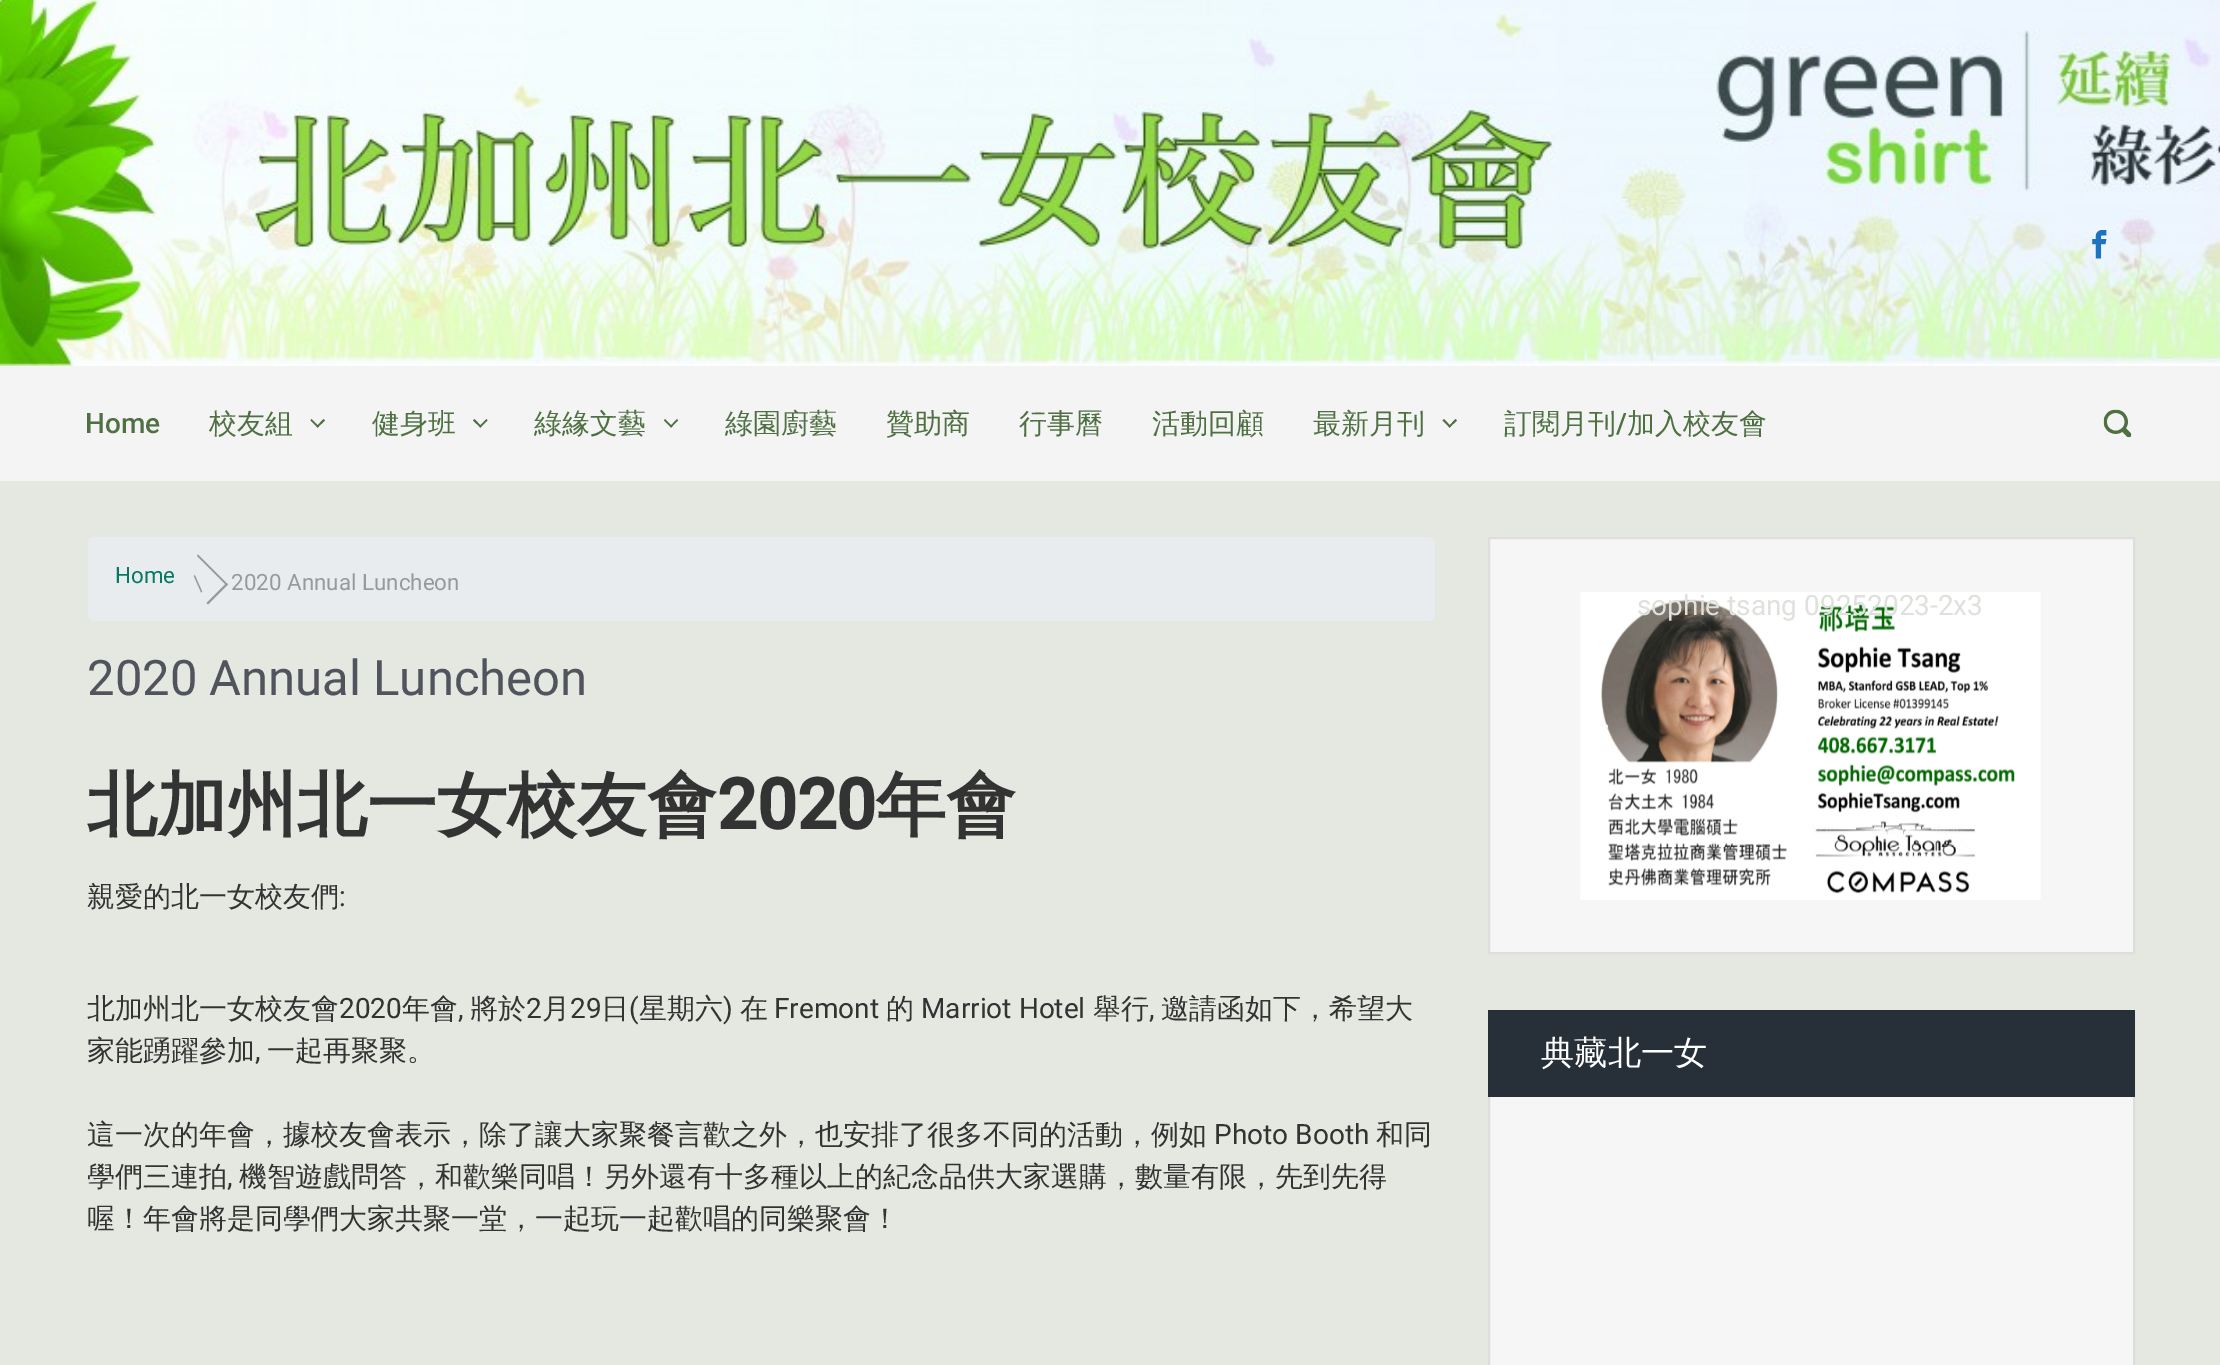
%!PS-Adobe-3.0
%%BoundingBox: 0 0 2220 1365
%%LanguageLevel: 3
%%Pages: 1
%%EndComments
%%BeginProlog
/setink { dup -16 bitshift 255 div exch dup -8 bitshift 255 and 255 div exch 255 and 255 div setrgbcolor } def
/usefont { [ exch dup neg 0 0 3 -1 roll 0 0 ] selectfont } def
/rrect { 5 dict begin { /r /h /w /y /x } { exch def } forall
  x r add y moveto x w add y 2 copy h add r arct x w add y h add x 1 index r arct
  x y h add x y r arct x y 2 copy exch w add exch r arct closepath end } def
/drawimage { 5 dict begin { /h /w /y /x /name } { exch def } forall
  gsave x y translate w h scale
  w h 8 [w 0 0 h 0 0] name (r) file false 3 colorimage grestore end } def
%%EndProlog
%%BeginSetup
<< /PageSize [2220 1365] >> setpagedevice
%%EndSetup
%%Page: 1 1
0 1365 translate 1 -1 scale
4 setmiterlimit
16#FFFFFF setink
0 0 2220 1365 rectfill
(img1.raw) 0 0 2220 366 drawimage
(img2.raw) 2092 230 15 29 drawimage
16#F4F4F4 setink
0 366 2220 115 rectfill
/Roboto-Medium 28 usefont
16#4F7043 setink
85 433 moveto (Home) show
/WenQuanYiZenHei-Medium 28 usefont
209 433 moveto (校友組) show
323.5 419 moveto 325 420.5 lineto 317.5 427.5 lineto 316.5 426.5 lineto closepath fill
311.5 419 moveto 319 426.5 lineto 317.5 427.5 lineto 310.5 420.5 lineto closepath fill
372 433 moveto (健身班) show
486.5 419 moveto 487.5 420.5 lineto 480.5 427.5 lineto 479 426.5 lineto closepath fill
474.5 419 moveto 481.5 426.5 lineto 480.5 427.5 lineto 473 420.5 lineto closepath fill
534 433 moveto (綠緣文藝) show
677 419 moveto 678 420.5 lineto 671 427.5 lineto 670 426.5 lineto closepath fill
665 419 moveto 672.5 426.5 lineto 671 427.5 lineto 664 420.5 lineto closepath fill
[
    [(綠園廚藝) 725 433]
    [(贊助商) 886 433]
    [(行事曆) 1019 433]
    [(活動回顧) 1152 433]
    [(最新月刊) 1313 433]
] { aload pop moveto show } forall
1455.5 419 moveto 1457 420.5 lineto 1449.5 427.5 lineto 1448.5 426.5 lineto closepath fill
1444 419 moveto 1451 426.5 lineto 1449.5 427.5 lineto 1442.5 420.5 lineto closepath fill
1504 433 moveto (訂閱月刊) show
/Roboto-Medium 28 usefont
1616 433 moveto (/) show
/WenQuanYiZenHei-Medium 28 usefont
1627 433 moveto (加入校友會) show
(img3.raw) 2103 409 29 29 drawimage
16#E4E8E1 setink
0 481 2220 884 rectfill
16#E9ECEF setink
88 537 1347 84 7 rrect fill
/Roboto-Regular 22.4 usefont
16#077863 setink
115 583 moveto (Home) show
16#999999 setink
197 556 moveto 198 554.5 lineto 228 584.5 lineto 226.5 585.5 lineto closepath fill
206.5 603 moveto 226.5 583 lineto 228 584.5 lineto 208 604.5 lineto closepath fill
gsave 200 592 translate -45 rotate 0 0 moveto (/) show grestore
231 590 moveto (2020 Annual Luncheon) show
/Roboto-Regular 49 usefont
16#51545C setink
87 695 moveto (2020 Annual Luncheon) show
/WenQuanYiZenHei-Bold 70 usefont
16#333333 setink
87 829 moveto (北加州北一女校友會) show
/Roboto-Bold 70 usefont
717 829 moveto (2020) show
/WenQuanYiZenHei-Bold 70 usefont
876 829 moveto (年會) show
/WenQuanYiZenHei-Medium 28 usefont
87 906 moveto (親愛的北一女校友們) show
/Roboto-Regular 28 usefont
339 906 moveto (:) show
/WenQuanYiZenHei-Medium 28 usefont
87 1018 moveto (北加州北一女校友會) show
/Roboto-Regular 28 usefont
339 1018 moveto (2020) show
/WenQuanYiZenHei-Medium 28 usefont
402 1018 moveto (年會) show
/Roboto-Regular 28 usefont
458 1018 moveto (,) show
/WenQuanYiZenHei-Medium 28 usefont
470 1018 moveto (將於) show
/Roboto-Regular 28 usefont
526 1018 moveto (2) show
/WenQuanYiZenHei-Medium 28 usefont
542 1018 moveto (月) show
/Roboto-Regular 28 usefont
570 1018 moveto (29) show
/WenQuanYiZenHei-Medium 28 usefont
601 1018 moveto (日) show
/Roboto-Regular 28 usefont
629 1018 moveto (\() show
/WenQuanYiZenHei-Medium 28 usefont
639 1018 moveto (星期六) show
/Roboto-Regular 28 usefont
723 1018 moveto (\)) show
/WenQuanYiZenHei-Medium 28 usefont
740 1018 moveto (在) show
/Roboto-Regular 28 usefont
774 1018 moveto (Fremont) show
/WenQuanYiZenHei-Medium 28 usefont
886 1018 moveto (的) show
/Roboto-Regular 28 usefont
921 1018 moveto (Marriot Hotel) show
/WenQuanYiZenHei-Medium 28 usefont
1093 1018 moveto (舉行) show
/Roboto-Regular 28 usefont
1149 1018 moveto (,) show
/WenQuanYiZenHei-Medium 28 usefont
1161 1018 moveto (邀請函如下，希望大) show
87 1060 moveto (家能踴躍參加) show
/Roboto-Regular 28 usefont
255 1060 moveto (,) show
/WenQuanYiZenHei-Medium 28 usefont
267 1060 moveto (一起再聚聚。) show
87 1144 moveto (這一次的年會，據校友會表示，除了讓大家聚餐言歡之外，也安排了很多不同的活動，例如) show
/Roboto-Regular 28 usefont
1214 1144 moveto (Photo Booth) show
/WenQuanYiZenHei-Medium 28 usefont
1376 1144 moveto (和同) show
87 1186 moveto (學們三連拍) show
/Roboto-Regular 28 usefont
227 1186 moveto (,) show
/WenQuanYiZenHei-Medium 28 usefont
239 1186 moveto (機智遊戲問答，和歡樂同唱！另外還有十多種以上的紀念品供大家選購，數量有限，先到先得) show
87 1228 moveto (喔！年會將是同學們大家共聚一堂，一起玩一起歡唱的同樂聚會！) show
16#F6F6F6 setink
1489 538 moveto 2134 538 lineto 2134 953 lineto 1489 953 lineto closepath gsave fill grestore
16#E0DDDD setink
2 setlinewidth
stroke
(img4.raw) 1580 592 461 308 drawimage
/Roboto-Regular 28 usefont
16#DEE1DC setink
1637 615 moveto (sophie tsang 09252023-2x3) show
(img5.raw) 1606 724 3 4 drawimage
16#F6F6F6 setink
1490 1097 643 268 rectfill
16#E0DDDD setink
1489 1011 645 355 rectstroke
16#273039 setink
1488 1010 647 87 rectfill
/WenQuanYiZenHei-Medium 33.25 usefont
16#FFFFFF setink
1541 1064 moveto (典藏北一女) show
showpage
%%EOF
